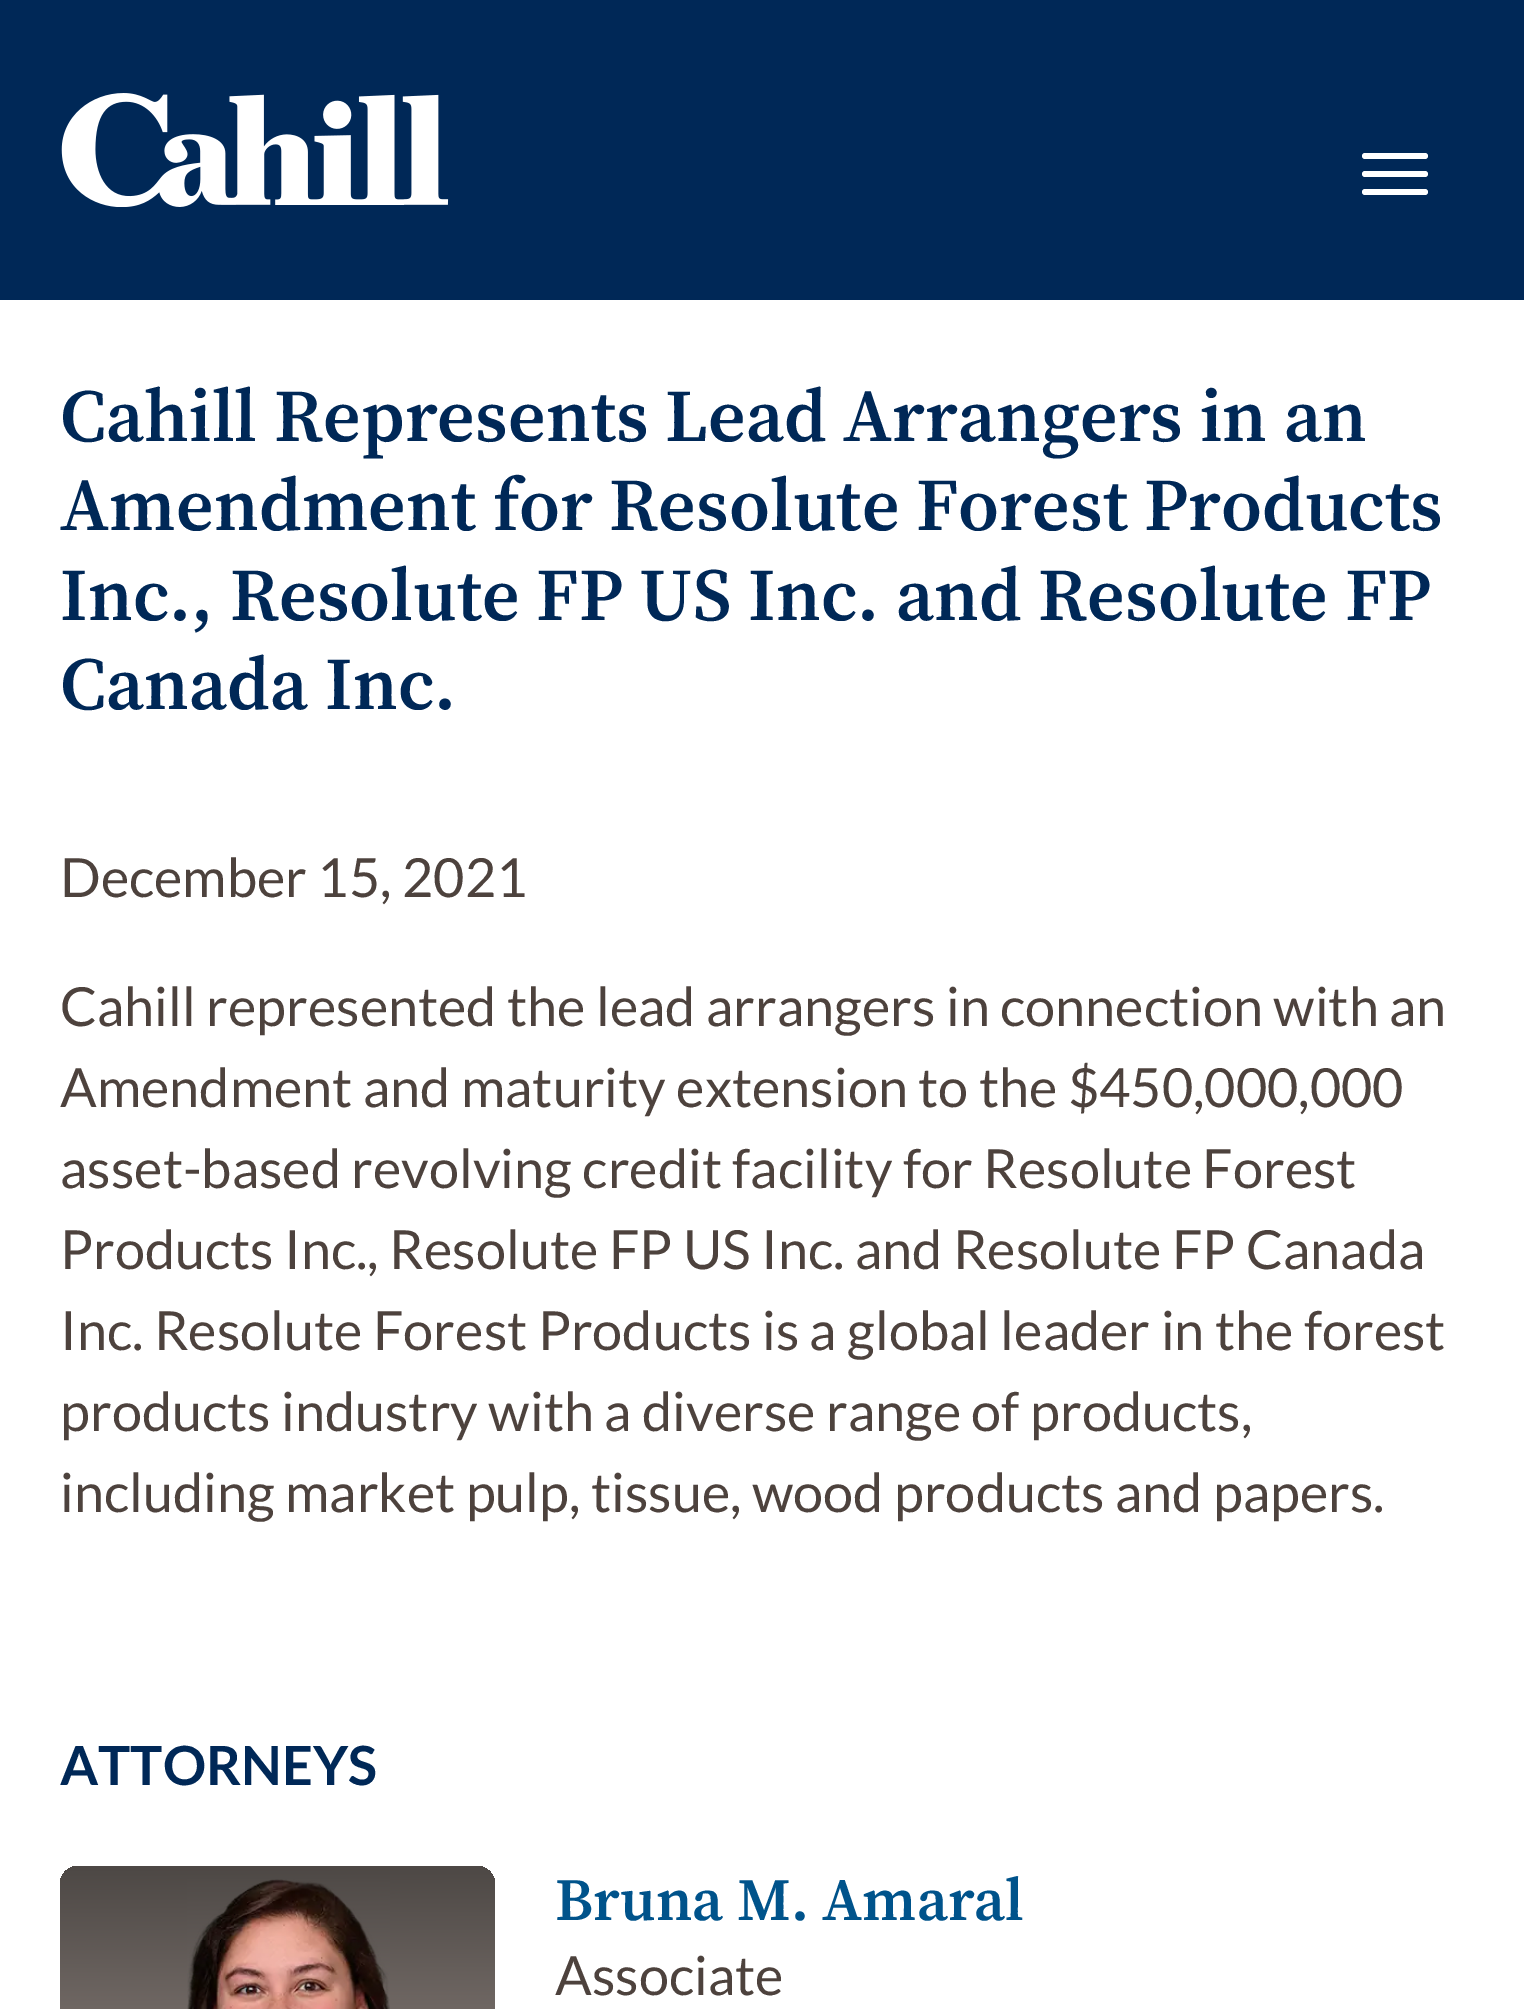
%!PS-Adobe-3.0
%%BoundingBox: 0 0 1524 2009
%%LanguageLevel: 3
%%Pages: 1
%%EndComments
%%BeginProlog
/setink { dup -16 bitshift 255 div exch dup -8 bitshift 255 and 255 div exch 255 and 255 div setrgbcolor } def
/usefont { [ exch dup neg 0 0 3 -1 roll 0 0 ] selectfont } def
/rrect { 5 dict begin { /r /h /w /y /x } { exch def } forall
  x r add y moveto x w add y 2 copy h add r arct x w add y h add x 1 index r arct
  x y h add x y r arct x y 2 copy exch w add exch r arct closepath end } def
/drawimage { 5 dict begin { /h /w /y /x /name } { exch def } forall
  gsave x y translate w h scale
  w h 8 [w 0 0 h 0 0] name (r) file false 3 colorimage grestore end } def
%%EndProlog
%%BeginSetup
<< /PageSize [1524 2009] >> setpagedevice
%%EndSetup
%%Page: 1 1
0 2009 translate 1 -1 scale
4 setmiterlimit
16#FFFFFF setink
0 0 1524 2009 rectfill
16#002857 setink
0 0 1524 300 rectfill
(img1.raw) 61 93 388 114 drawimage
16#FFFFFF setink
1362 153 66 6 3 rrect fill
1362 171 66 6 3 rrect fill
1362 189 66 6 3 rrect fill
/SourceSerif4-SemiBold 74.4 usefont
16#002857 setink
[
    [(Cahill Represents Lead Arrangers in an) 60 441]
    [(Amendment for Resolute Forest Products) 60 530]
    [(Inc., Resolute FP US Inc. and Resolute FP) 60 620]
    [(Canada Inc.) 60 709]
] { aload pop moveto show } forall
/Lato-Regular 54 usefont
16#4D423D setink
[
    [(December 15, 2021) 60 897]
    [(Cahill represented the lead arrangers in connection with an) 60 1026]
    [(Amendment and maturity extension to the $450,000,000) 60 1107]
    [(asset-based revolving credit facility for Resolute Forest) 60 1188]
    [(Products Inc., Resolute FP US Inc. and Resolute FP Canada) 60 1269]
    [(Inc. Resolute Forest Products is a global leader in the forest) 60 1350]
    [(products industry with a diverse range of products,) 60 1431]
    [(including market pulp, tissue, wood products and papers.) 60 1512]
] { aload pop moveto show } forall
/Lato-Bold 54 usefont
16#002857 setink
60 1785 moveto (ATTORNEYS) show
gsave 60 1866 435 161 18 rrect clip newpath
<< /ShadingType 2 /ColorSpace /DeviceRGB /Coords [277 1866 278 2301] /Extend [true true] /Function << /FunctionType 2 /Domain [0 1] /C0 [0.302 0.282 0.271] /C1 [0.702 0.651 0.631] /N 1 >> >> shfill grestore
(img2.raw) 187 1879 203 130 drawimage
/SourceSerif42-SemiBold 60 usefont
16#00538B setink
555 1920 moveto (Bruna M. Amaral) show
/Lato-Regular 54 usefont
16#4D423D setink
555 1995 moveto (Associate) show
showpage
%%EOF
